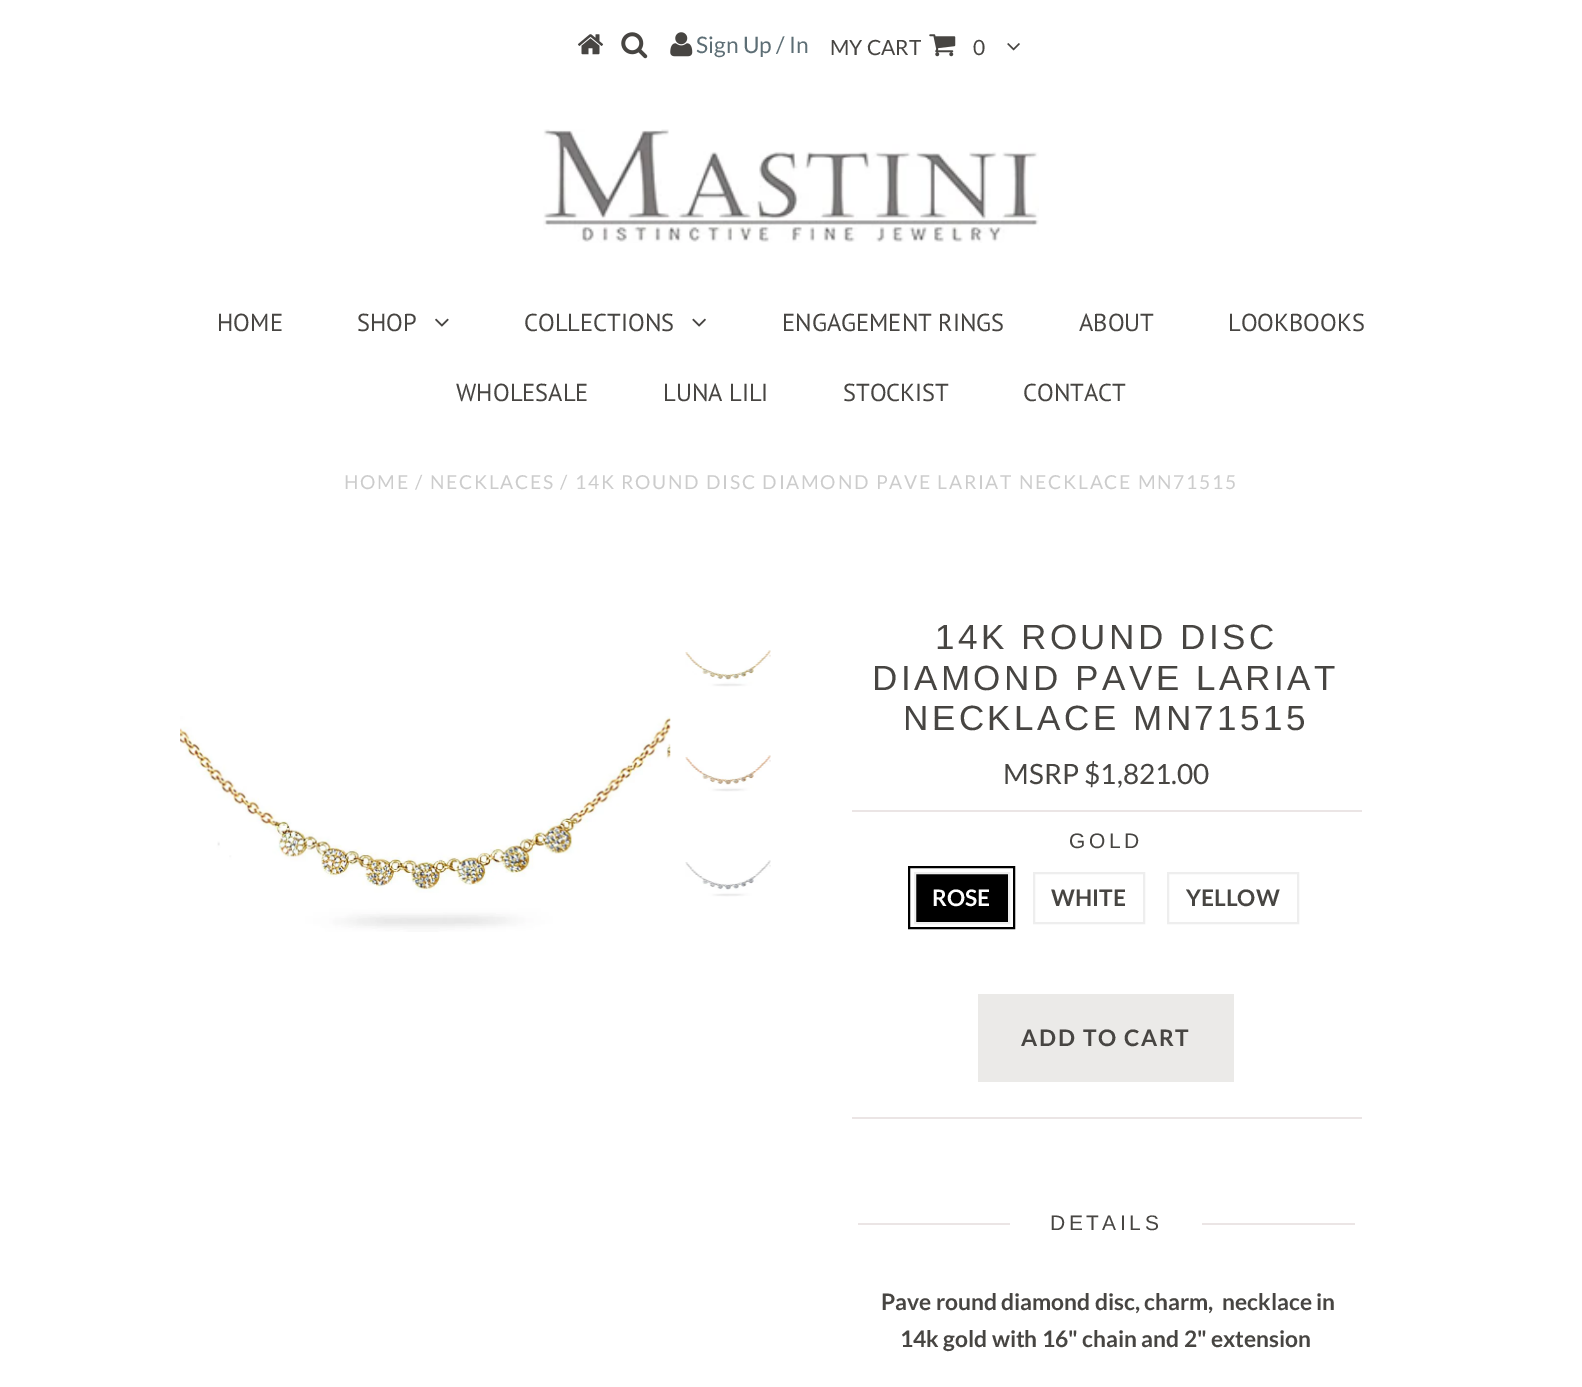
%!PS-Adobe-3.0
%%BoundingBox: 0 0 1582 1387
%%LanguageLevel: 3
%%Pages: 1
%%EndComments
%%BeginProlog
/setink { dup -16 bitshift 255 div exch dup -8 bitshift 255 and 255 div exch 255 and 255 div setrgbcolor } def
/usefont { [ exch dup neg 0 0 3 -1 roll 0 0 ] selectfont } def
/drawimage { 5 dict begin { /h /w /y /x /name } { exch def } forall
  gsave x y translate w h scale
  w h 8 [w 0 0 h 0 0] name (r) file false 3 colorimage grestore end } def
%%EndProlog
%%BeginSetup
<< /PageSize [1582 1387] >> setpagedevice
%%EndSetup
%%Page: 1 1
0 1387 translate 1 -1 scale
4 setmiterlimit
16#FFFFFF setink
0 0 1582 1387 rectfill
(img1.raw) 577 34 27 21 drawimage
(img2.raw) 621 32 27 27 drawimage
(img3.raw) 670 32 23 25 drawimage
/Lato-Regular 22.75 usefont
16#5D6E75 setink
696 53 moveto (Sign Up / In) show
/Lato-Regular 21 usefont
16#474542 setink
830 55 moveto (MY CART) show
(img4.raw) 929 34 27 23 drawimage
973 55 moveto (0) show
(img5.raw) 1007 43 13 8 drawimage
(img6.raw) 543 129 496 114 drawimage
/PTSans-Regular 24.5 usefont
217 331 moveto (HOME) show
357 331 moveto (SHOP) show
(img7.raw) 435 318 14 9 drawimage
524 331 moveto (COLLECTIONS) show
(img8.raw) 692 318 14 9 drawimage
[
    [(ENGAGEMENT RINGS) 782 331]
    [(ABOUT) 1079 331]
    [(LOOKBOOKS) 1228 331]
    [(WHOLESALE) 456 401]
    [(LUNA LILI) 663 401]
    [(STOCKIST) 843 401]
    [(CONTACT) 1023 401]
] { aload pop moveto show } forall
/Lato-Regular 19.25 usefont
16#CCCCCC setink
344 489 moveto 1.75 0 (HOME / NECKLACES / 14K ROUND DISC DIAMOND PAVE LARIAT NECKLACE MN71515) ashow
(img9.raw) 180 716 491 216 drawimage
(img10.raw) 685 650 86 37 drawimage
(img11.raw) 685 755 86 37 drawimage
(img12.raw) 685 860 86 37 drawimage
/LiberationSans-Regular 35 usefont
16#474542 setink
935 649 moveto 3.5 0 (14K ROUND DISC) ashow
872 690 moveto 3.5 0 (DIAMOND PAVE LARIAT) ashow
903 730 moveto 3.5 0 (NECKLACE MN71515) ashow
/Lato-Regular 28 usefont
1003 784 moveto (MSRP $1,821.00) show
16#EBE5E5 setink
852 810 510 2 rectfill
852 1117 510 2 rectfill
/LiberationSans-Regular 21 usefont
16#474542 setink
1069 848 moveto 3.5 0 (GOLD) ashow
16#000000 setink
915 873 moveto 1009 873 lineto 1009 923 lineto 915 923 lineto closepath gsave fill grestore
16#EEEEEE setink
2 setlinewidth
stroke
16#000000 setink
909 867 105 61 rectstroke
/Lato-Bold 22.75 usefont
16#FFFFFF setink
932 906 moveto (ROSE) show
16#EEEEEE setink
1034 873 110 50 rectstroke
16#474542 setink
1051 906 moveto (WHITE) show
16#EEEEEE setink
1168 873 130 50 rectstroke
16#474542 setink
1186 906 moveto (YELLOW) show
16#EBEAE8 setink
978 994 256 88 rectfill
16#474542 setink
1021 1046 moveto 1.75 0 (ADD TO CART) ashow
16#EBE5E5 setink
858 1223 497 2 rectfill
16#FFFFFF setink
1010 1223 192 2 rectfill
/LiberationSans-Regular 21 usefont
16#474542 setink
1050 1230 moveto 3.5 0 (DETAILS) ashow
/Lato-Bold 22.75 usefont
881 1310 moveto (Pave round diamond disc, charm,  necklace in) show
900 1347 moveto (14k gold with 16" chain and 2" extension) show
showpage
%%EOF
